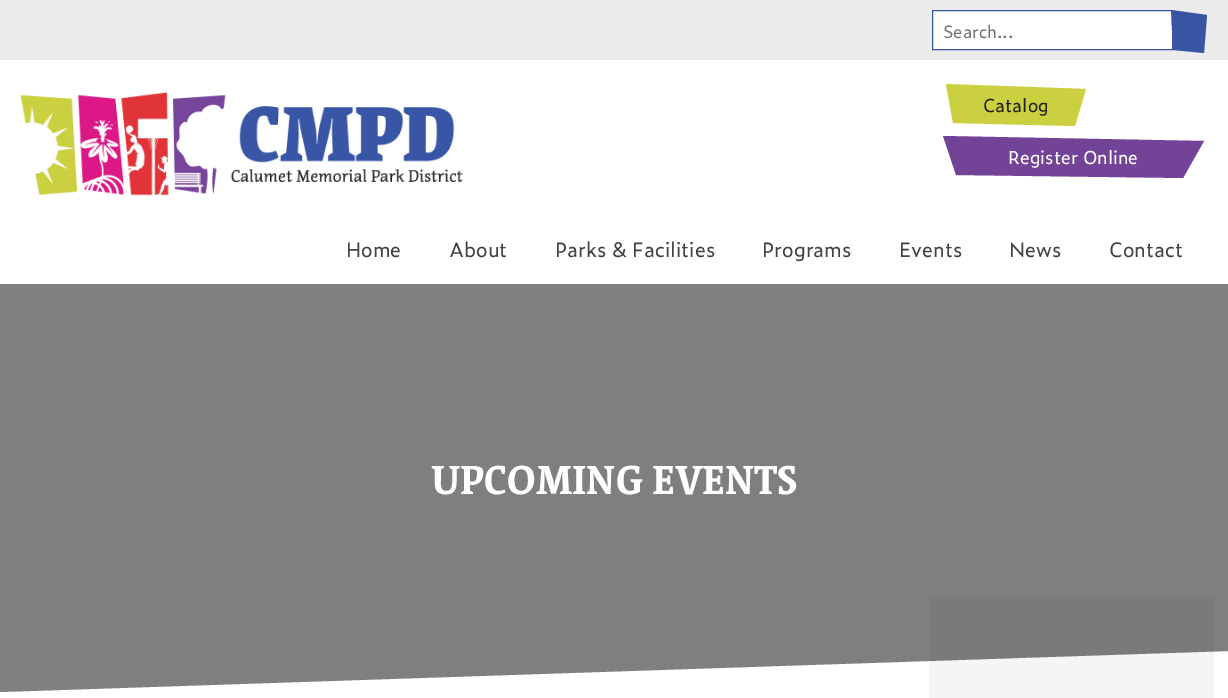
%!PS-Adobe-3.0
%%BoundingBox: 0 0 1228 698
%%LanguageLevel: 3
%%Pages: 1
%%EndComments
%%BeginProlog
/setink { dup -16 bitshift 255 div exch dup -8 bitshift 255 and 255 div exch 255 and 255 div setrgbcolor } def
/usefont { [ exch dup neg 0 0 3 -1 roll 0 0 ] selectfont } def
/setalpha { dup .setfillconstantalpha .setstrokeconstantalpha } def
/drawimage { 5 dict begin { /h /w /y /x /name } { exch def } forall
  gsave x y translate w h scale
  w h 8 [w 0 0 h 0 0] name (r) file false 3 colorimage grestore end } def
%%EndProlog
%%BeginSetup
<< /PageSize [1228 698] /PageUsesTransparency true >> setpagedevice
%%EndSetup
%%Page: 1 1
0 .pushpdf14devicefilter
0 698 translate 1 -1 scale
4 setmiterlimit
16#FFFFFF setink
0 0 1228 698 rectfill
16#EBEBEB setink
0 0 1228 60 rectfill
16#FFFFFF setink
932.5 10.5 moveto 1172.5 10.5 lineto 1172.5 49.5 lineto 932.5 49.5 lineto closepath gsave fill grestore
16#3855A3 setink
stroke
/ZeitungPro-Regular 17 usefont
16#757575 setink
943 38 moveto (Search...) show
16#3855A3 setink
1171 10 moveto 1207 15 lineto 1204 53 lineto 1173 50 lineto closepath fill
(img1.raw) 20 92 443 104 drawimage
16#CAD040 setink
946 84 moveto 953 123 lineto 1075 126 lineto 1086 89 lineto closepath fill
/ZeitungPro-Regular 18 usefont
16#242122 setink
983 112 moveto (Catalog) show
16#734398 setink
943 136 moveto 956 175 lineto 1183 178 lineto 1204 141 lineto closepath fill
16#FFFFFF setink
1008 164 moveto (Register Online) show
/ZeitungPro-Regular 20 usefont
16#434343 setink
[
    [(Home) 346 257]
    [(About) 449 257]
    [(Parks & Facilities) 555 257]
    [(Programs) 762 257]
    [(Events) 899 257]
    [(News) 1009 257]
    [(Contact) 1109 257]
] { aload pop moveto show } forall
16#F5F5F5 setink
929 597 285 101 rectfill
0.5 setalpha
16#000000 setink
0 284 moveto 0 692 lineto 1228 651 lineto 1228 284 lineto closepath fill
/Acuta-Bold 40 usefont
1 setalpha
16#FFFFFF setink
431 494 moveto (UPCOMING EVENTS) show
.poppdf14devicefilter showpage
%%EOF
